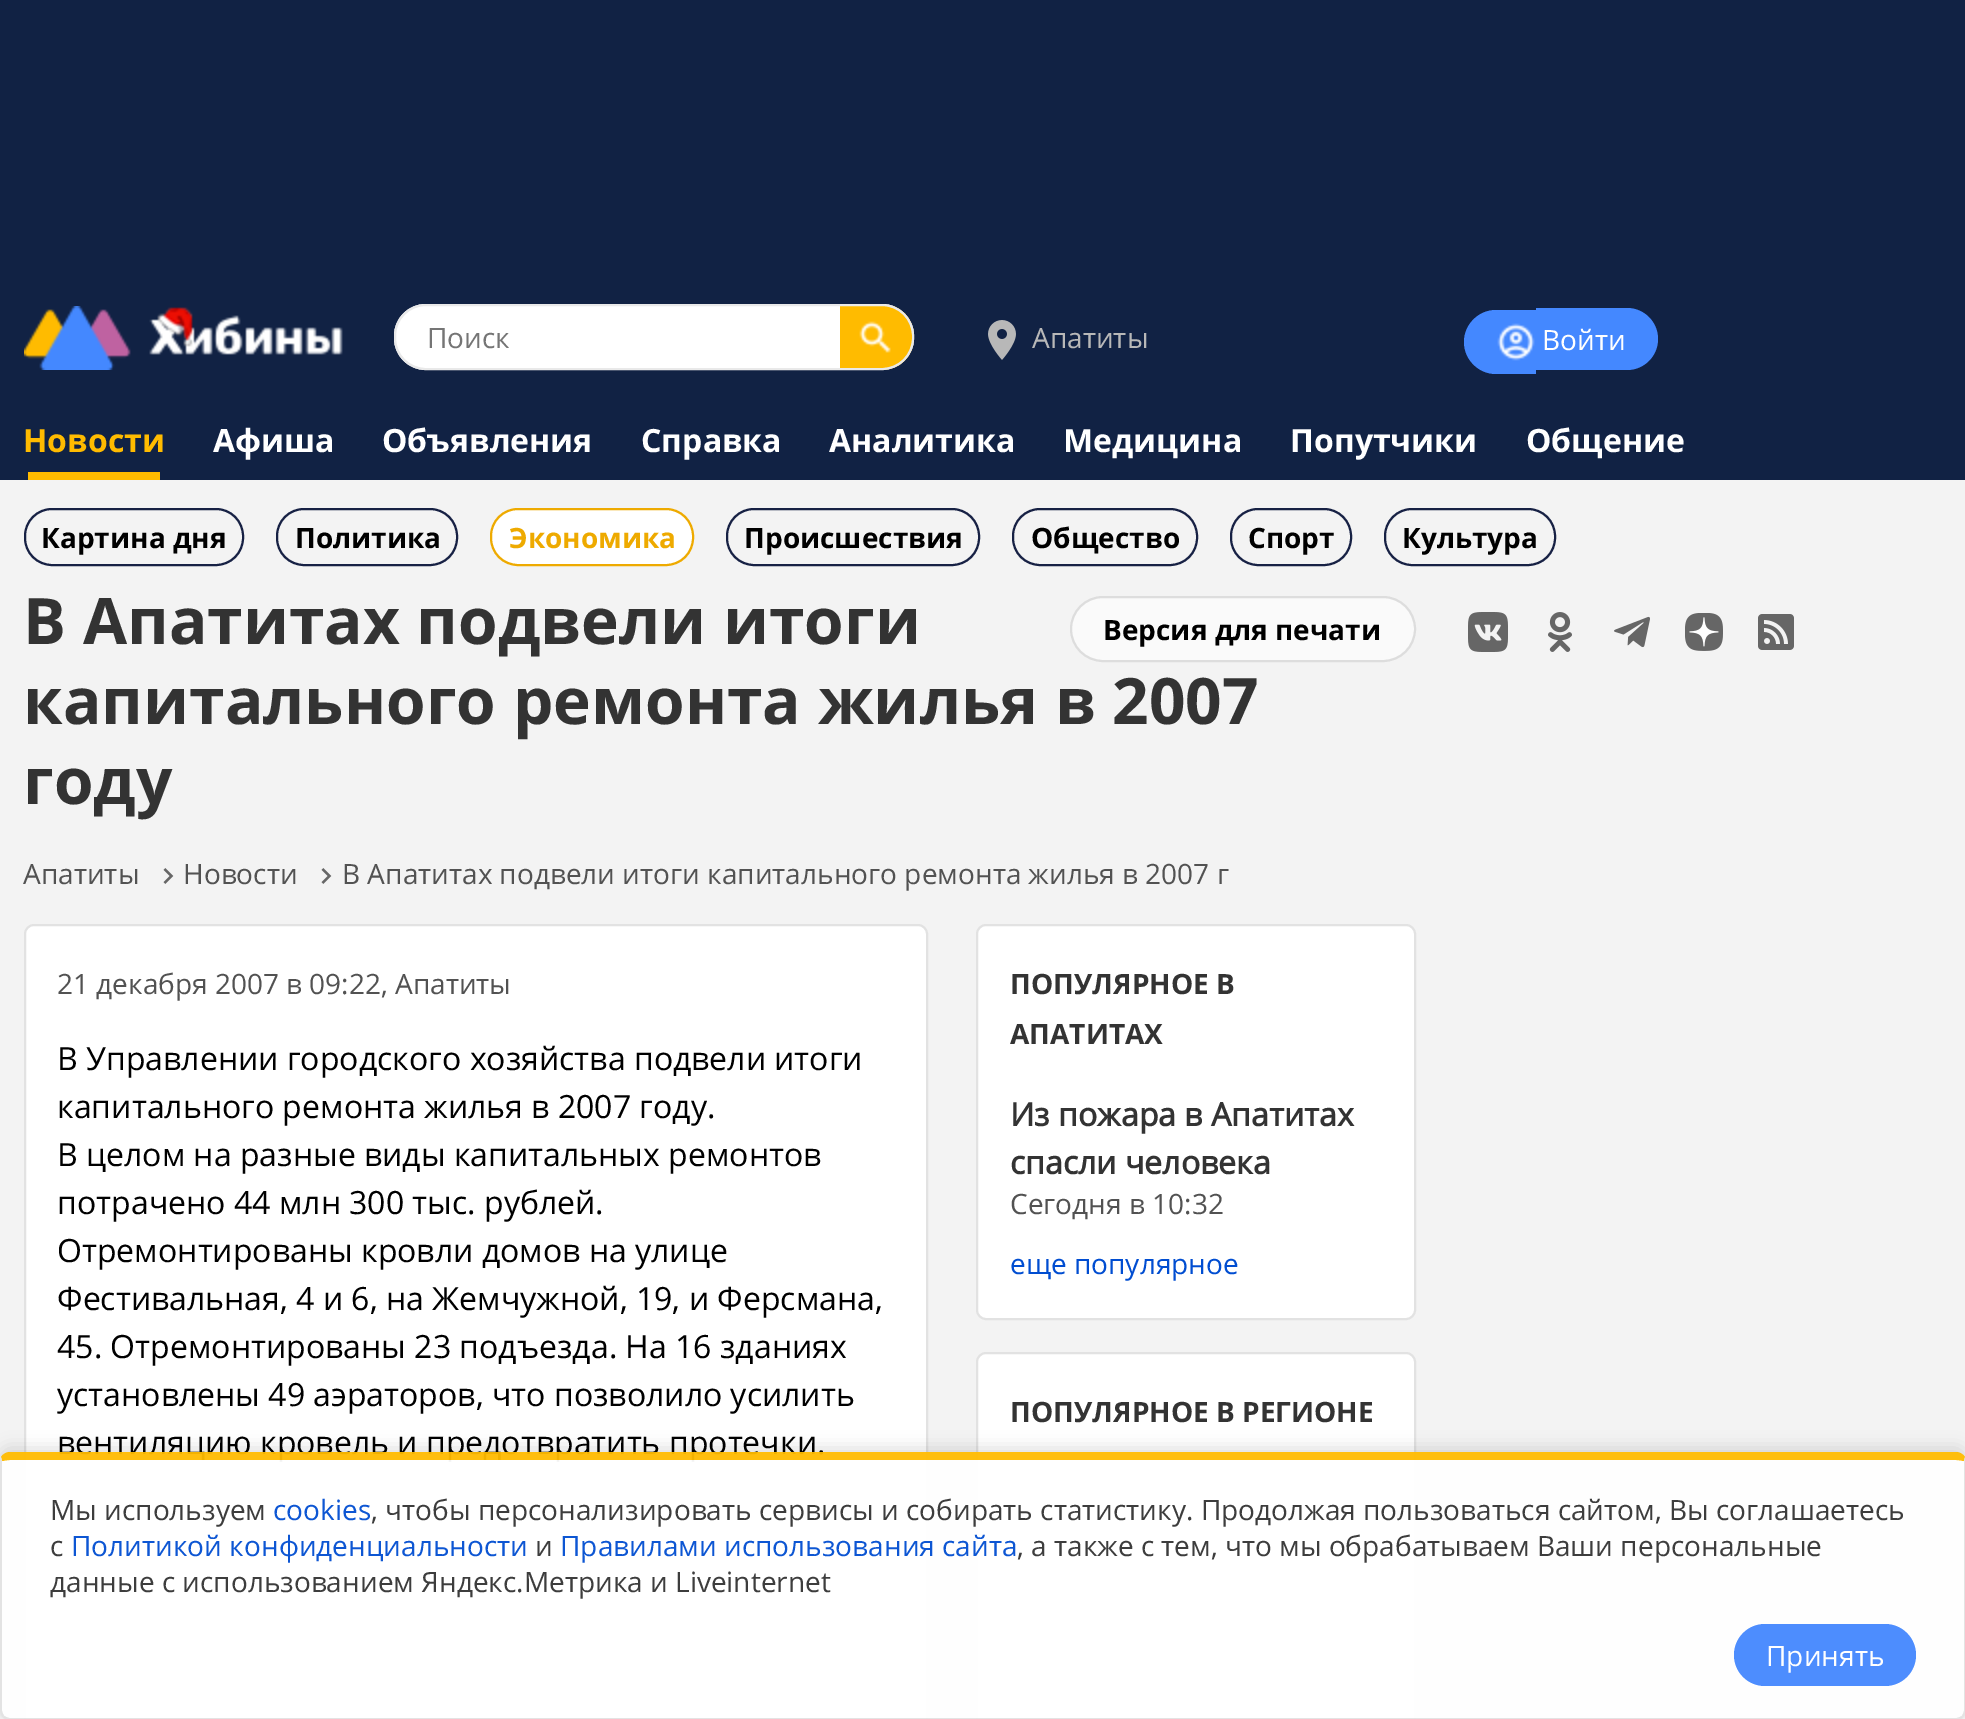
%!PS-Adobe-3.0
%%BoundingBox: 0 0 1965 1719
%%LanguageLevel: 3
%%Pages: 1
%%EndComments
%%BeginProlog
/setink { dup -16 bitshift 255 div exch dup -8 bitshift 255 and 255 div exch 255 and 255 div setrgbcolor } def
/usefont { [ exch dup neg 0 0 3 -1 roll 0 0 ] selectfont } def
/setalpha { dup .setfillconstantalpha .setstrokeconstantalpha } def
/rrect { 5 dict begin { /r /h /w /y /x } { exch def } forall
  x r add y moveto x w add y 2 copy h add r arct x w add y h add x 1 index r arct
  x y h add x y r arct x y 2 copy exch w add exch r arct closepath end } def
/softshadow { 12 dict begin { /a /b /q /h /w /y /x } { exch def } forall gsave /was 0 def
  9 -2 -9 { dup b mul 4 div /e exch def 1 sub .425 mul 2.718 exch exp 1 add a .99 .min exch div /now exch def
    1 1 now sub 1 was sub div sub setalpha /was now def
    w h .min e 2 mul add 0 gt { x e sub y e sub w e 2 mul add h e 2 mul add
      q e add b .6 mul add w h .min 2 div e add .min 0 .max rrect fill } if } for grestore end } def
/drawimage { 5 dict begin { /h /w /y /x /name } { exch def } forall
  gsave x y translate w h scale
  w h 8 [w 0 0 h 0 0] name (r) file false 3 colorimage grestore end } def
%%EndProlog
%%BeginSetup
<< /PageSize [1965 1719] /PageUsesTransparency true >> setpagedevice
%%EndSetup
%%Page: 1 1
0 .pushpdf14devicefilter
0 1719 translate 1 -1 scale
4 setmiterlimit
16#F3F3F3 setink
0 0 1965 1719 rectfill
16#112244 setink
0 0 1965 480 rectfill
(img1.raw) 24 306 319 64 drawimage
16#FFFFFF setink
394 304 520 66 32 rrect fill
(img2.raw) 840 306 72 64 drawimage
16#E9E9E9 setink
2 setlinewidth
395 305 518 64 31 rrect stroke
/OpenSans-Regular 28 usefont
16#757575 setink
427 348 moveto (Поиск) show
(img3.raw) 988 320 28 40 drawimage
16#B8B8B8 setink
1032 348 moveto (Апатиты) show
16#4488FF setink
1496 310 moveto 1536 310 lineto 1536 374 lineto 1496 374 lineto 1478.5 374 1464 359.5 1464 342 curveto 1464 324.5 1478.5 310 1496 310 curveto closepath fill
(img4.raw) 1497 323 38 38 drawimage
1536 308 moveto 1627 308 lineto 1644 308 1658 322 1658 339 curveto 1658 356 1644 370 1627 370 curveto 1536 370 lineto closepath fill
16#FFFFFF setink
1542 350 moveto (Войти) show
/OpenSans-Bold 32 usefont
16#FFBB00 setink
23 452 moveto (Новости) show
28 472 132 8 rectfill
16#FFFFFF setink
[
    [(Афиша) 213 452]
    [(Объявления) 382 452]
    [(Справка) 641 452]
    [(Аналитика) 829 452]
    [(Медицина) 1063 452]
    [(Попутчики) 1290 452]
    [(Общение) 1526 452]
] { aload pop moveto show } forall
16#172144 setink
25 509 218 56 27 rrect stroke
/OpenSans-Bold 28 usefont
16#000000 setink
41 548 moveto (Картина дня) show
16#172144 setink
277 509 180 56 27 rrect stroke
16#000000 setink
295 548 moveto (Политика) show
16#FFFFFF setink
491 509 202 56 27 rrect gsave fill grestore
16#EEAA00 setink
stroke
509 548 moveto (Экономика) show
16#172144 setink
727 509 252 56 27 rrect stroke
16#000000 setink
744 548 moveto (Происшествия) show
16#172144 setink
1013 509 184 56 27 rrect stroke
16#000000 setink
1031 548 moveto (Общество) show
16#172144 setink
1231 509 120 56 27 rrect stroke
16#000000 setink
1248 548 moveto (Спорт) show
16#172144 setink
1385 509 170 56 27 rrect stroke
16#000000 setink
1402 548 moveto (Культура) show
/OpenSans-Bold 64 usefont
16#333333 setink
[
    [(В Апатитах подвели итоги) 23 644]
    [(капитального ремонта жилья в 2007) 23 724]
    [(году) 23 804]
] { aload pop moveto show } forall
16#FAFAFA setink
1071 597 344 64 32 rrect gsave fill grestore
16#DDDDDD setink
stroke
/OpenSans-Bold 28 usefont
16#000000 setink
1103 640 moveto (Версия для печати) show
/OpenSans-Regular 28 usefont
16#525252 setink
23 884 moveto (Апатиты) show
(img5.raw) 163 868 11 16 drawimage
183 884 moveto (Новости) show
(img5.raw) 321 868 11 16 drawimage
342 884 moveto (В Апатитах подвели итоги капитального ремонта жилья в 2007 г) show
16#FFFFFF setink
25 925 902 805 9 rrect gsave fill grestore
16#E2E2E2 setink
stroke
16#525252 setink
57 994 moveto (21 декабря 2007 в 09:22, Апатиты) show
/OpenSans-Regular 32 usefont
16#000000 setink
[
    [(В Управлении городского хозяйства подвели итоги) 57 1070]
    [(капитального ремонта жилья в 2007 году.) 57 1118]
    [(В целом на разные виды капитальных ремонтов) 57 1166]
    [(потрачено 44 млн 300 тыс. рублей.) 57 1214]
    [(Отремонтированы кровли домов на улице) 57 1262]
    [(Фестивальная, 4 и 6, на Жемчужной, 19, и Ферсмана,) 57 1310]
    [(45. Отремонтированы 23 подъезда. На 16 зданиях) 57 1358]
    [(установлены 49 аэраторов, что позволило усилить) 57 1406]
    [(вентиляцию кровель и предотвратить протечки.) 57 1454]
] { aload pop moveto show } forall
16#FFFFFF setink
977 925 438 394 9 rrect gsave fill grestore
16#E2E2E2 setink
stroke
/OpenSans-Bold 28 usefont
16#333333 setink
1010 994 moveto (ПОПУЛЯРНОЕ В) show
1010 1044 moveto (АПАТИТАХ) show
/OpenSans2-Bold 32 usefont
1010 1126 moveto (Из пожара в Апатитах) show
1010 1174 moveto (спасли человека) show
/OpenSans-Regular 28 usefont
16#525252 setink
1010 1214 moveto (Сегодня в 10:32) show
16#004DD1 setink
1010 1274 moveto (еще популярное) show
16#FFFFFF setink
977 1353 438 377 9 rrect gsave fill grestore
16#E2E2E2 setink
stroke
/OpenSans-Bold 28 usefont
16#333333 setink
1010 1422 moveto (ПОПУЛЯРНОЕ В РЕГИОНЕ) show
(img6.raw) 1468 612 40 40 drawimage
(img7.raw) 1548 612 24 40 drawimage
(img8.raw) 1614 616 36 32 drawimage
(img9.raw) 1685 613 38 38 drawimage
(img10.raw) 1758 614 36 36 drawimage
gsave
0 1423 moveto 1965 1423 lineto 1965 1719 lineto 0 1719 lineto closepath 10 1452 moveto 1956 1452 lineto 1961.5 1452 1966 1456.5 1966 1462 curveto 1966 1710 lineto 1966 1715.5 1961.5 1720 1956 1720 curveto 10 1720 lineto 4.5 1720 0 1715.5 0 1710 curveto 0 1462 lineto 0 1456.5 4.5 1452 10 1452 curveto closepath eoclip newpath
16#000000 setink
0 1448 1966 268 10 8 0.14 softshadow
grestore
0.95 setalpha
16#FFFFFF setink
10 1460 moveto 1956 1460 lineto 1960 1460 1964 1461 1964 1462 curveto 1964 1710 lineto 1964 1714 1960 1718 1956 1718 curveto 10 1718 lineto 6 1718 2 1714 2 1710 curveto 2 1462 lineto 2 1461 6 1460 10 1460 curveto closepath fill
16#FFBB00 setink
10 1452 moveto 6 1452 3 1454 1 1457 curveto 2 1461 lineto 3 1461 7 1460 10 1460 curveto 1956 1460 lineto 1959 1460 1963 1461 1964 1461 curveto 1965 1457 lineto 1963 1454 1960 1452 1956 1452 curveto closepath fill
1 setalpha
16#E3E3E3 setink
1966 1710 moveto 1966 1462 lineto 1965 1457 lineto 1964 1461 lineto 1964 1462 lineto 1964 1710 lineto 1964 1712 1963 1714 1962 1716 curveto 1963 1717 lineto 1965 1716 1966 1713 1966 1710 curveto closepath fill
0.95 setalpha
16#E2E2E2 setink
10 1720 moveto 1956 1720 lineto 1959 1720 1962 1719 1963 1717 curveto 1962 1716 lineto 1960 1717 1958 1718 1956 1718 curveto 10 1718 lineto 8 1718 6 1717 4 1716 curveto 3 1717 lineto 4 1719 7 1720 10 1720 curveto closepath fill
1 setalpha
16#E3E3E3 setink
0 1462 moveto 0 1710 lineto 0 1713 1 1716 3 1717 curveto 4 1716 lineto 3 1714 2 1712 2 1710 curveto 2 1462 lineto 2 1461 lineto 1 1457 lineto closepath fill
/OpenSans-Regular 28 usefont
16#3D3D3D setink
50 1520 moveto (Мы используем) show
16#0D56D3 setink
273 1520 moveto (cookies) show
16#3D3D3D setink
371 1520 moveto (, чтобы персонализировать сервисы и собирать статистику. Продолжая пользоваться сайтом, Вы соглашаетесь) show
50 1556 moveto (с) show
16#0D56D3 setink
71 1556 moveto (Политикой конфиденциальности) show
16#3D3D3D setink
535 1556 moveto (и) show
16#0D56D3 setink
560 1556 moveto (Правилами использования сайта) show
16#3D3D3D setink
1017 1556 moveto (, а также с тем, что мы обрабатываем Ваши персональные) show
50 1592 moveto (данные с использованием Яндекс.Метрика и Liveinternet) show
16#4D8DFE setink
1734 1624 182 62 31 rrect fill
16#FFFFFF setink
1766 1666 moveto (Принять) show
.poppdf14devicefilter showpage
%%EOF
